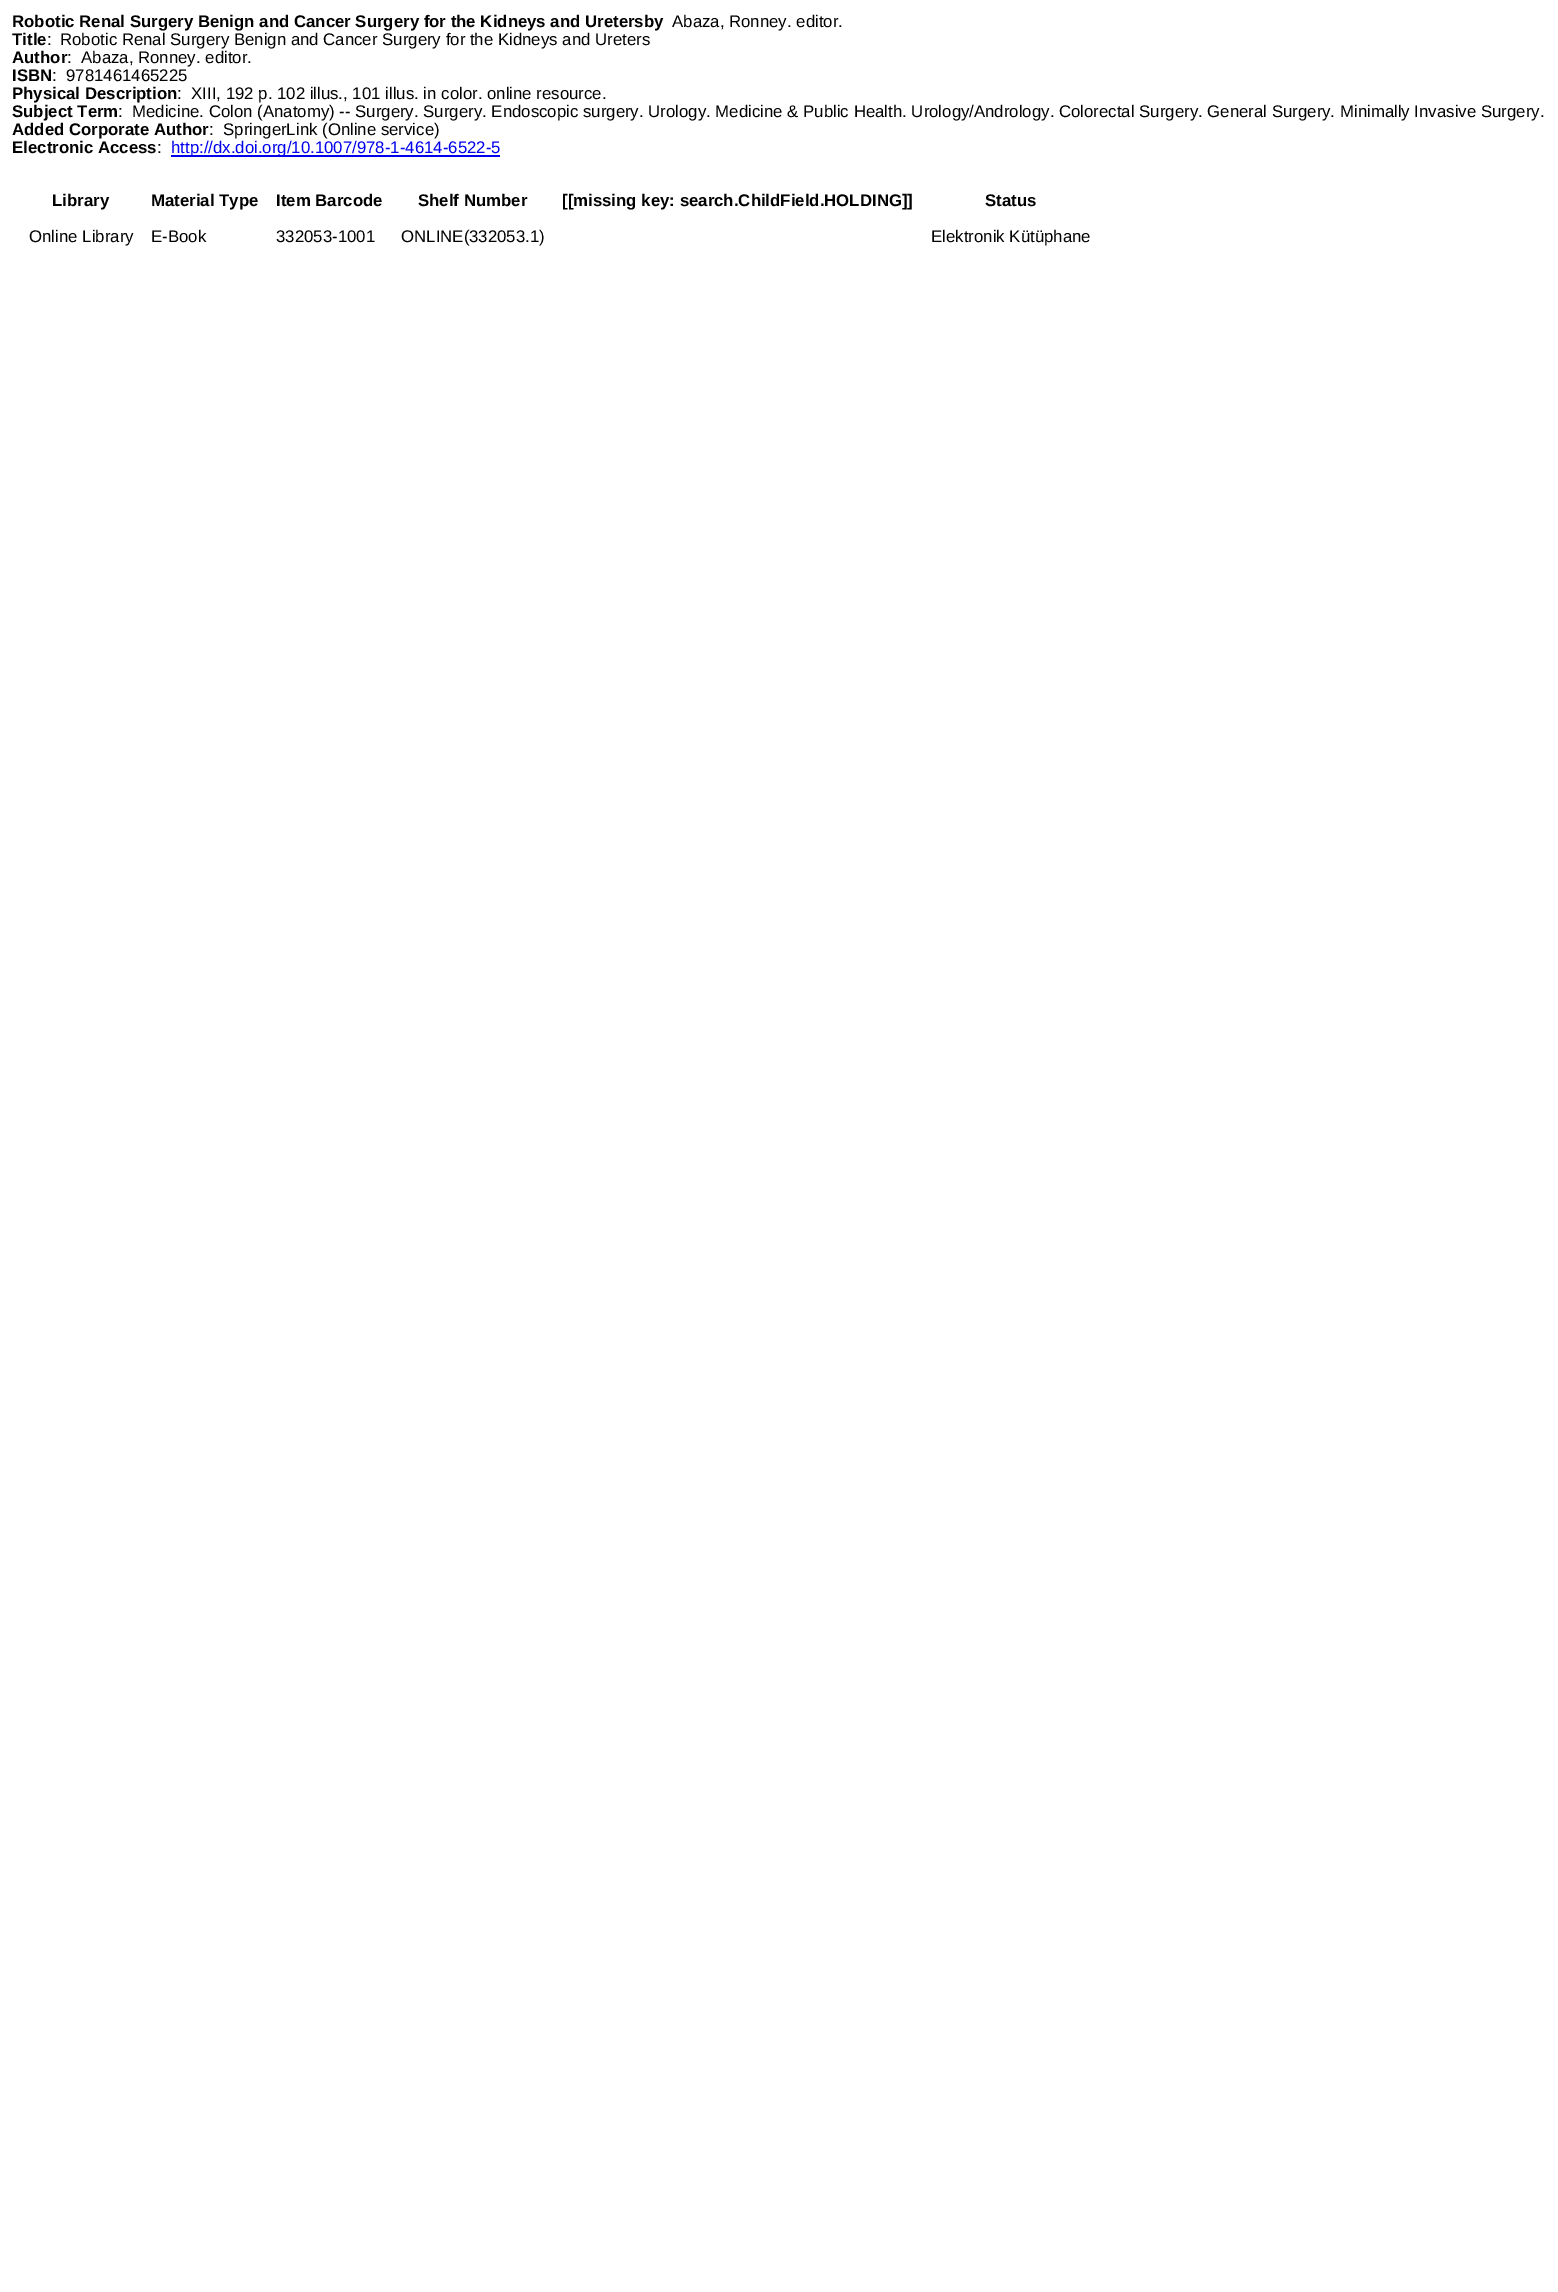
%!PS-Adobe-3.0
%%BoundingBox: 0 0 1558 2292
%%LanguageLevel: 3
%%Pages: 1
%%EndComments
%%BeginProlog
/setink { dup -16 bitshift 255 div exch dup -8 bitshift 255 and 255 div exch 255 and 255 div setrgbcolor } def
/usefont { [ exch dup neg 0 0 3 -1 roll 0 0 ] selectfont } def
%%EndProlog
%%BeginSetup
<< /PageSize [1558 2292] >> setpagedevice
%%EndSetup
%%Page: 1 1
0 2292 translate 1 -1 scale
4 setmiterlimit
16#FFFFFF setink
0 0 1558 2292 rectfill
/LiberationSans-Bold 16.8 usefont
16#000000 setink
12 27 moveto (Robotic Renal Surgery Benign and Cancer Surgery for the Kidneys and Uretersby) show
/LiberationSans-Regular 16.8 usefont
672 27 moveto (Abaza, Ronney. editor.) show
/LiberationSans-Bold 16.8 usefont
12 45 moveto (Title) show
/LiberationSans-Regular 16.8 usefont
47 45 moveto (:) show
60 45 moveto (Robotic Renal Surgery Benign and Cancer Surgery for the Kidneys and Ureters) show
/LiberationSans-Bold 16.8 usefont
12 63 moveto (Author) show
/LiberationSans-Regular 16.8 usefont
67 63 moveto (:) show
81 63 moveto (Abaza, Ronney. editor.) show
/LiberationSans-Bold 16.8 usefont
12 81 moveto (ISBN) show
/LiberationSans-Regular 16.8 usefont
52 81 moveto (:) show
66 81 moveto (9781461465225) show
/LiberationSans-Bold 16.8 usefont
12 99 moveto (Physical Description) show
/LiberationSans-Regular 16.8 usefont
177 99 moveto (:) show
191 99 moveto (XIII, 192 p. 102 illus., 101 illus. in color. online resource.) show
/LiberationSans-Bold 16.8 usefont
12 117 moveto (Subject Term) show
/LiberationSans-Regular 16.8 usefont
118 117 moveto (:) show
132 117 moveto (Medicine. Colon \(Anatomy\) -- Surgery. Surgery. Endoscopic surgery. Urology. Medicine & Public Health. Urology/Andrology. Colorectal Surgery. General Surgery. Minimally Invasive Surgery.) show
/LiberationSans-Bold 16.8 usefont
12 135 moveto (Added Corporate Author) show
/LiberationSans-Regular 16.8 usefont
209 135 moveto (:) show
223 135 moveto (SpringerLink \(Online service\)) show
/LiberationSans-Bold 16.8 usefont
12 153 moveto (Electronic Access) show
/LiberationSans-Regular 16.8 usefont
157 153 moveto (:) show
16#0000EE setink
171 155 329 2 rectfill
171 153 moveto (http://dx.doi.org/10.1007/978-1-4614-6522-5) show
/LiberationSans-Bold 16.8 usefont
16#000000 setink
[
    [(Library) 52 206]
    [(Material Type) 151 206]
    [(Item Barcode) 276 206]
    [(Shelf Number) 418 206]
    [([[missing key: search.ChildField.HOLDING]]) 562 206]
    [(Status) 985 206]
] { aload pop moveto show } forall
/LiberationSans-Regular 16.8 usefont
[
    [(Online Library) 29 242]
    [(E-Book) 151 242]
    [(332053-1001) 276 242]
    [(ONLINE\(332053.1\)) 401 242]
    [(Elektronik Kütüphane) 931 242]
] { aload pop moveto show } forall
showpage
%%EOF
